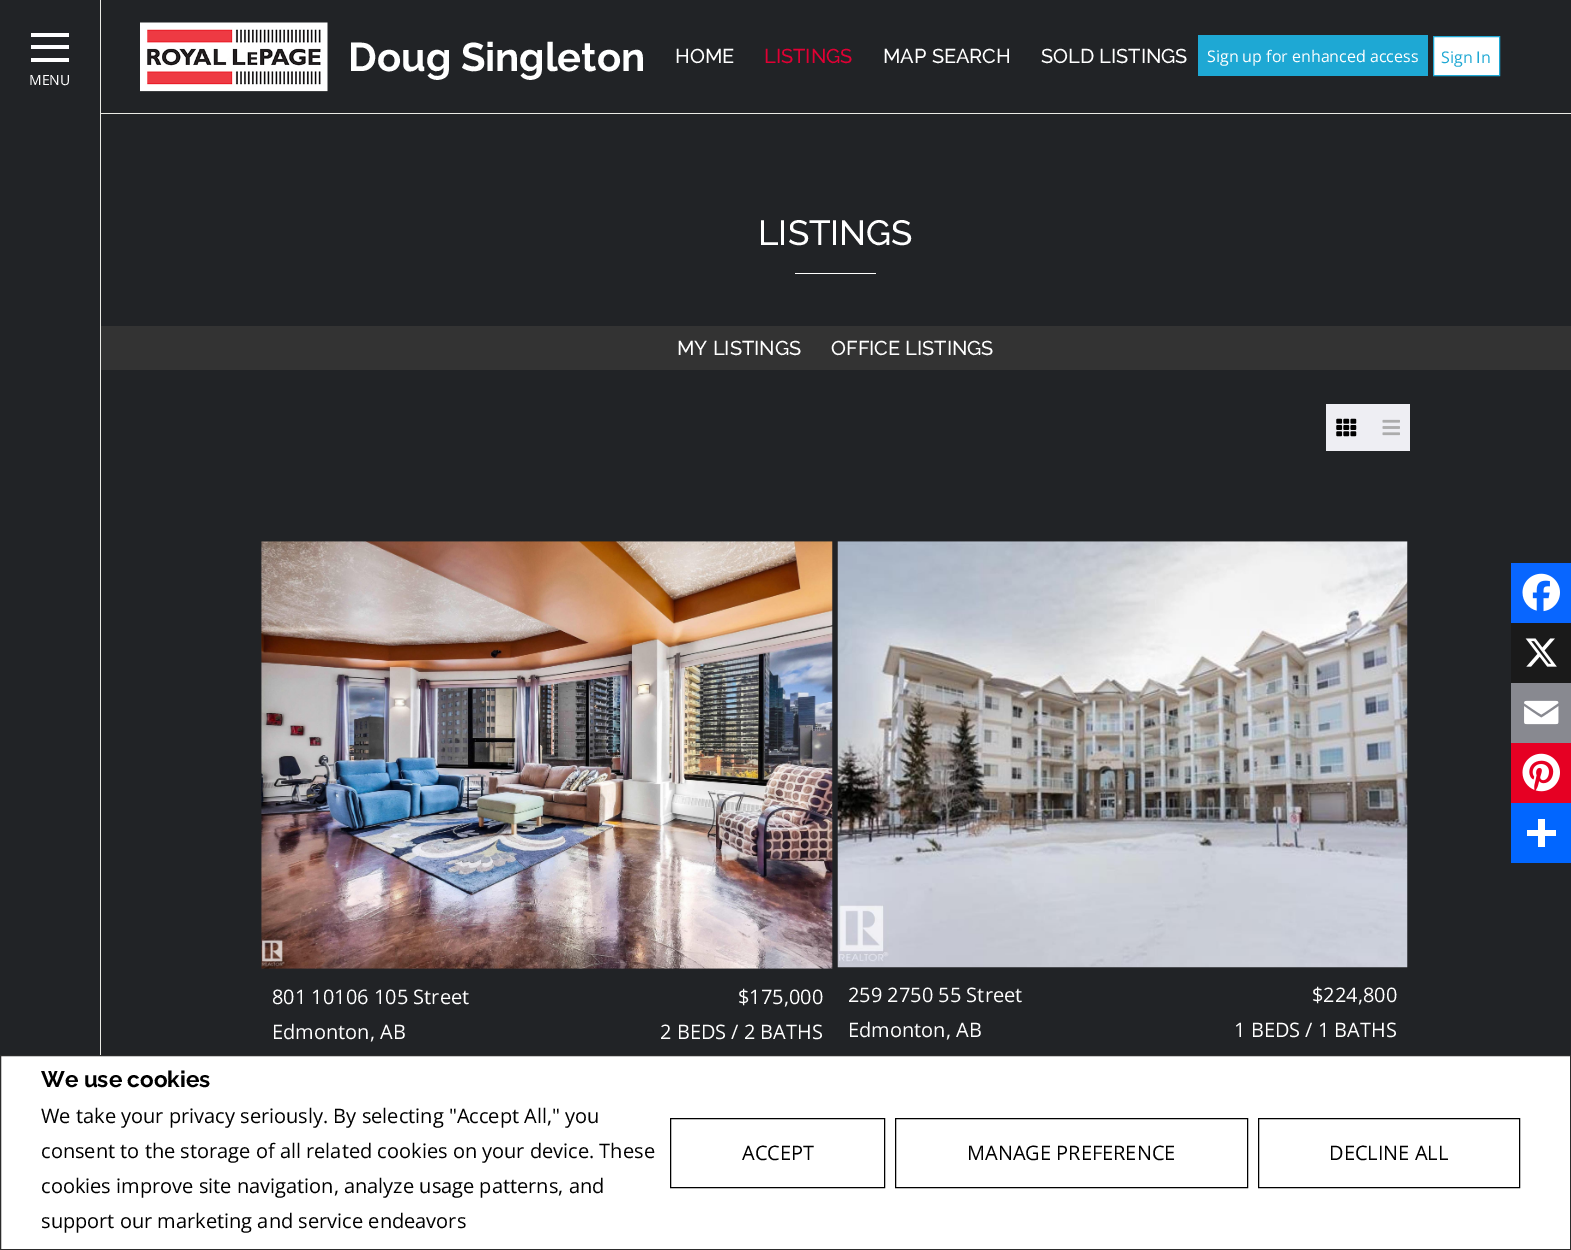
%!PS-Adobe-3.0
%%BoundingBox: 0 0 1571 1250
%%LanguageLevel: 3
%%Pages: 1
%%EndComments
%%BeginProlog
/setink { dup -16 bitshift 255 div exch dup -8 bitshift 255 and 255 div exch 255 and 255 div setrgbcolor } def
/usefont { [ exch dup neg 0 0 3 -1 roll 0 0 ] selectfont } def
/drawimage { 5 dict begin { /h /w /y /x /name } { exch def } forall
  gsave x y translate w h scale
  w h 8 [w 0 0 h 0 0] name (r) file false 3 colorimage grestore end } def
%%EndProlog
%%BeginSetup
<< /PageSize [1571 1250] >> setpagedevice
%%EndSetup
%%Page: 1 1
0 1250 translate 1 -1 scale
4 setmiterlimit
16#212326 setink
0 0 1571 1250 rectfill
[
    [100 113 1471 1 16#EBEBE6]
    [100 0 1 1055 16#EBEBE6]
    [31 33 38 4 16#FFFFFF]
    [31 45 38 4 16#FFFFFF]
    [31 58 38 4 16#FFFFFF]
] { aload pop setink rectfill } forall
/OpenSans-Regular 14 usefont
29 85 moveto (MENU) show
(img1.raw) 140 22 188 70 drawimage
/Raleway-Bold 40 usefont
348 71 moveto (Doug Singleton) show
/Raleway-Medium 20 usefont
675 63 moveto (HOME) show
16#E00034 setink
764 63 moveto (LISTINGS) show
16#FFFFFF setink
883 63 moveto (MAP SEARCH) show
1041 63 moveto (SOLD LISTINGS) show
16#1EA8D4 setink
1198 35 230 41 rectfill
/OpenSans-Regular 16 usefont
16#FFFFFF setink
1207 62 moveto (Sign up for enhanced access) show
1433.5 36.5 moveto 1499.5 36.5 lineto 1499.5 75.5 lineto 1433.5 75.5 lineto closepath gsave fill grestore
16#1EA8D4 setink
stroke
1441 63 moveto (Sign In) show
/Raleway-Medium 35 usefont
16#FFFFFF setink
758 245 moveto (LISTINGS) show
795 273 81 1 rectfill
16#333333 setink
101 326 1470 44 rectfill
/Raleway-Medium 20 usefont
16#FFFFFF setink
677 355 moveto (MY LISTINGS) show
831 355 moveto (OFFICE LISTINGS) show
16#EEEEF3 setink
1326 404 84 47 rectfill
(img2.raw) 1336 418 21 19 drawimage
(img3.raw) 1382 419 18 17 drawimage
(img4.raw) 261 541 572 428 drawimage
/OpenSans-Regular 20 usefont
16#FFFFFF setink
[
    [(801 10106 105 Street) 272 1004]
    [(Edmonton, AB) 272 1039]
    [($175,000) 738 1004]
    [(2 BEDS / 2 BATHS) 660 1039]
] { aload pop moveto show } forall
(img5.raw) 837 541 571 427 drawimage
[
    [(259 2750 55 Street) 848 1002]
    [(Edmonton, AB) 848 1037]
    [($224,800) 1312 1002]
    [(1 BEDS / 1 BATHS) 1234 1037]
] { aload pop moveto show } forall
16#0866FF setink
1511 563 60 60 rectfill
(img6.raw) 1522 573 38 39 drawimage
16#1A1A1A setink
1511 623 60 60 rectfill
(img7.raw) 1525 638 32 29 drawimage
16#888990 setink
1511 683 60 60 rectfill
(img8.raw) 1524 700 35 25 drawimage
16#E60023 setink
1511 743 60 60 rectfill
(img9.raw) 1522 753 38 39 drawimage
[
    [1511 803 60 60 16#0166FF]
    [1538 819 7 28 16#FFFFFF]
    [1527 830 29 6 16#FFFFFF]
] { aload pop setink rectfill } forall
0.5 1055.5 moveto 1570.5 1055.5 lineto 1570.5 1249.5 lineto 0.5 1249.5 lineto closepath gsave fill grestore
16#2B2B2B setink
stroke
/Raleway-Bold 22.5 usefont
16#000000 setink
41 1087 moveto (We use cookies) show
/OpenSans-Regular 20 usefont
[
    [(We take your privacy seriously. By selecting "Accept All," you) 41 1123]
    [(consent to the storage of all related cookies on your device. These) 41 1158]
    [(cookies improve site navigation, analyze usage patterns, and) 41 1193]
    [(support our marketing and service endeavors) 41 1228]
] { aload pop moveto show } forall
670.5 1118.5 214 69 rectstroke
742 1160 moveto (ACCEPT) show
895.5 1118.5 352 69 rectstroke
967 1160 moveto (MANAGE PREFERENCE) show
1258.5 1118.5 261 69 rectstroke
1329 1160 moveto (DECLINE ALL) show
showpage
%%EOF
